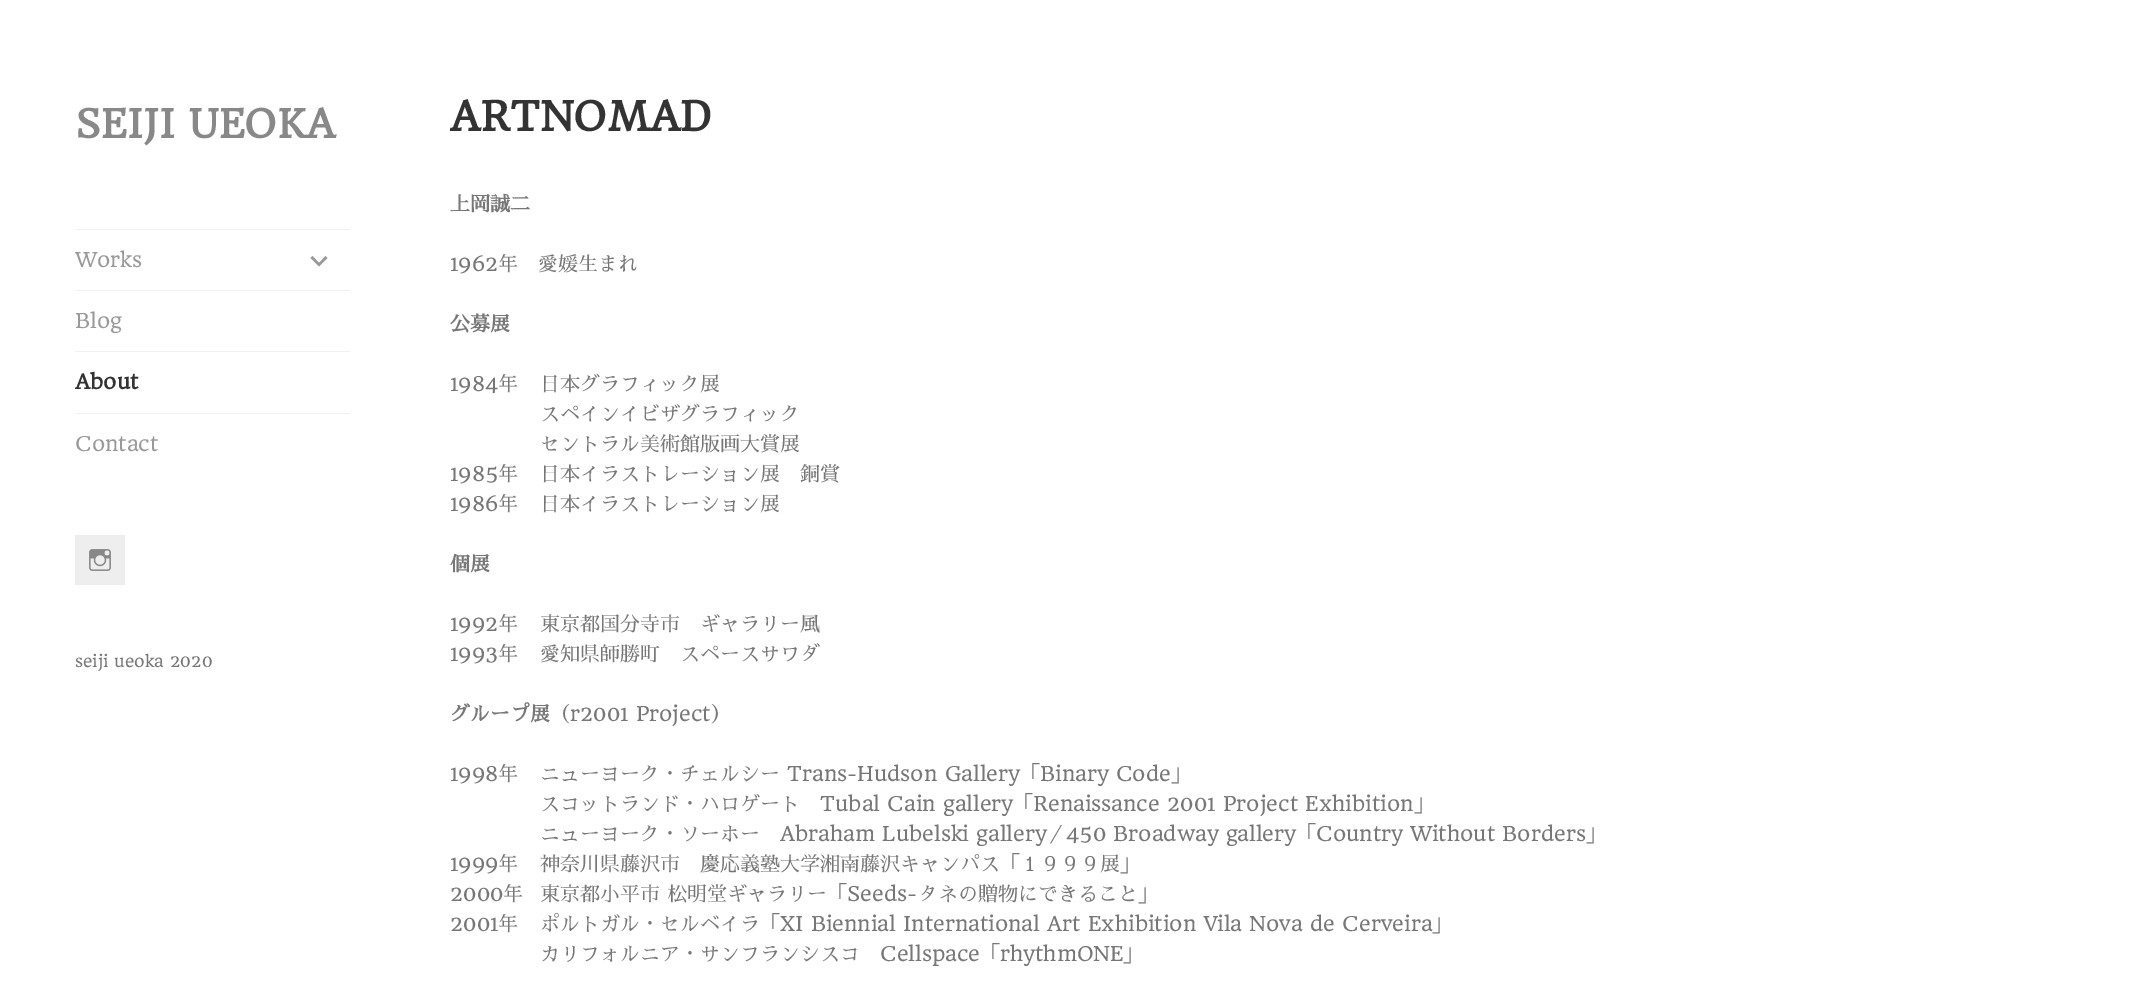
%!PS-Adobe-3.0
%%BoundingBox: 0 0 2130 984
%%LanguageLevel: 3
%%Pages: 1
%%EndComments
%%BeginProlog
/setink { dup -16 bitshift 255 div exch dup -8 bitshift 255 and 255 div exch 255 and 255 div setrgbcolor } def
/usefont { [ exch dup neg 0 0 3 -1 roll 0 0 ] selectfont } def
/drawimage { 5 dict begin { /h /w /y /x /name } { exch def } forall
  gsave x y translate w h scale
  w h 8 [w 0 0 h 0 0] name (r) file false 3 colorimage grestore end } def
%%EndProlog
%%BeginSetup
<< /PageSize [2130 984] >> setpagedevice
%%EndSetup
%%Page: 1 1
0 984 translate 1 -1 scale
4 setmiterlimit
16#FFFFFF setink
0 0 2130 984 rectfill
/HeadlandOne-Bold 38.75 usefont
16#888888 setink
75 138 moveto (SEIJI UEOKA) show
16#F0F0F0 setink
75 229 275 1 rectfill
/HeadlandOne-Regular 20 usefont
16#999999 setink
75 267 moveto (Works) show
325.5 256 moveto 327.5 258 lineto 319 266.5 lineto 310.5 258 lineto 312.5 256 lineto 319 263 lineto closepath fill
16#F0F0F0 setink
75 290 275 1 rectfill
16#999999 setink
75 328 moveto (Blog) show
16#F0F0F0 setink
75 351 275 1 rectfill
/HeadlandOne-Bold 20 usefont
16#333333 setink
75 389 moveto (About) show
16#F0F0F0 setink
75 413 275 1 rectfill
/HeadlandOne-Regular 20 usefont
16#999999 setink
75 451 moveto (Contact) show
16#EEEEEE setink
75 535 50 50 rectfill
(img1.raw) 89 549 22 22 drawimage
/HeadlandOne-Regular 16 usefont
16#777777 setink
75 667 moveto (seiji ueoka 2020) show
/HeadlandOne-Bold 40 usefont
16#333333 setink
450 131 moveto (ARTNOMAD) show
/SawarabiMincho-Bold 20 usefont
16#777777 setink
450 211 moveto (上岡誠二) show
/HeadlandOne-Regular 20 usefont
450 271 moveto (1962) show
/SawarabiMincho-Regular 20 usefont
498 271 moveto (年　愛媛生まれ) show
/SawarabiMincho-Bold 20 usefont
450 331 moveto (公募展) show
/HeadlandOne-Regular 20 usefont
450 391 moveto (1984) show
/SawarabiMincho-Regular 20 usefont
[
    [(年) 498 391]
    [(日本グラフィック展) 540 391]
    [(スペインイビザグラフィック) 540 421]
    [(セントラル美術館版画大賞展) 540 451]
] { aload pop moveto show } forall
/HeadlandOne-Regular 20 usefont
450 481 moveto (1985) show
/SawarabiMincho-Regular 20 usefont
498 481 moveto (年) show
540 481 moveto (日本イラストレーション展　銅賞) show
/HeadlandOne-Regular 20 usefont
450 511 moveto (1986) show
/SawarabiMincho-Regular 20 usefont
498 511 moveto (年) show
540 511 moveto (日本イラストレーション展) show
/SawarabiMincho-Bold 20 usefont
450 571 moveto (個展) show
/HeadlandOne-Regular 20 usefont
450 631 moveto (1992) show
/SawarabiMincho-Regular 20 usefont
498 631 moveto (年) show
540 631 moveto (東京都国分寺市　ギャラリー風) show
/HeadlandOne-Regular 20 usefont
450 661 moveto (1993) show
/SawarabiMincho-Regular 20 usefont
498 661 moveto (年) show
540 661 moveto (愛知県師勝町　スペースサワダ) show
/SawarabiMincho-Bold 20 usefont
450 721 moveto (グループ展) show
/SawarabiMincho-Regular 20 usefont
550 721 moveto (（) show
/HeadlandOne-Regular 20 usefont
570 721 moveto (r2001 Project) show
/SawarabiMincho-Regular 20 usefont
711 721 moveto (）) show
/HeadlandOne-Regular 20 usefont
450 781 moveto (1998) show
/SawarabiMincho-Regular 20 usefont
498 781 moveto (年) show
540 781 moveto (ニューヨーク・チェルシー) show
/HeadlandOne-Regular 20 usefont
787 781 moveto (Trans-Hudson Gallery) show
/SawarabiMincho-Regular 20 usefont
1020 781 moveto (「) show
/HeadlandOne-Regular 20 usefont
1040 781 moveto (Binary Code) show
/SawarabiMincho-Regular 20 usefont
1171 781 moveto (」) show
540 811 moveto (スコットランド・ハロゲート) show
/HeadlandOne-Regular 20 usefont
820 811 moveto (Tubal Cain gallery) show
/SawarabiMincho-Regular 20 usefont
1013 811 moveto (「) show
/HeadlandOne-Regular 20 usefont
1033 811 moveto (Renaissance 2001 Project Exhibition) show
/SawarabiMincho-Regular 20 usefont
1414 811 moveto (」) show
540 841 moveto (ニューヨーク・ソーホー) show
/HeadlandOne-Regular 20 usefont
780 841 moveto (Abraham Lubelski gallery) show
/SawarabiMincho-Regular 20 usefont
1046 841 moveto (／) show
/HeadlandOne-Regular 20 usefont
1066 841 moveto (450 Broadway gallery) show
/SawarabiMincho-Regular 20 usefont
1296 841 moveto (「) show
/HeadlandOne-Regular 20 usefont
1316 841 moveto (Country Without Borders) show
/SawarabiMincho-Regular 20 usefont
1586 841 moveto (」) show
/HeadlandOne-Regular 20 usefont
450 871 moveto (1999) show
/SawarabiMincho-Regular 20 usefont
498 871 moveto (年) show
540 871 moveto (神奈川県藤沢市　慶応義塾大学湘南藤沢キャンパス「１９９９展」) show
/HeadlandOne-Regular 20 usefont
450 901 moveto (2000) show
/SawarabiMincho-Regular 20 usefont
503 901 moveto (年) show
540 901 moveto 1 0 32 (東京都小平市 松明堂ギャラリー「) widthshow
/HeadlandOne-Regular 20 usefont
847 901 moveto (Seeds-) show
/SawarabiMincho-Regular 20 usefont
918 901 moveto (タネの贈物にできること」) show
/HeadlandOne-Regular 20 usefont
450 931 moveto (2001) show
/SawarabiMincho-Regular 20 usefont
498 931 moveto (年) show
540 931 moveto (ポルトガル・セルベイラ「) show
/HeadlandOne-Regular 20 usefont
780 931 moveto (XI Biennial International Art Exhibition Vila Nova de Cerveira) show
/SawarabiMincho-Regular 20 usefont
1432 931 moveto (」) show
540 961 moveto (カリフォルニア・サンフランシスコ) show
/HeadlandOne-Regular 20 usefont
880 961 moveto (Cellspace) show
/SawarabiMincho-Regular 20 usefont
980 961 moveto (「) show
/HeadlandOne-Regular 20 usefont
1000 961 moveto (rhythmONE) show
/SawarabiMincho-Regular 20 usefont
1123 961 moveto (」) show
showpage
%%EOF
